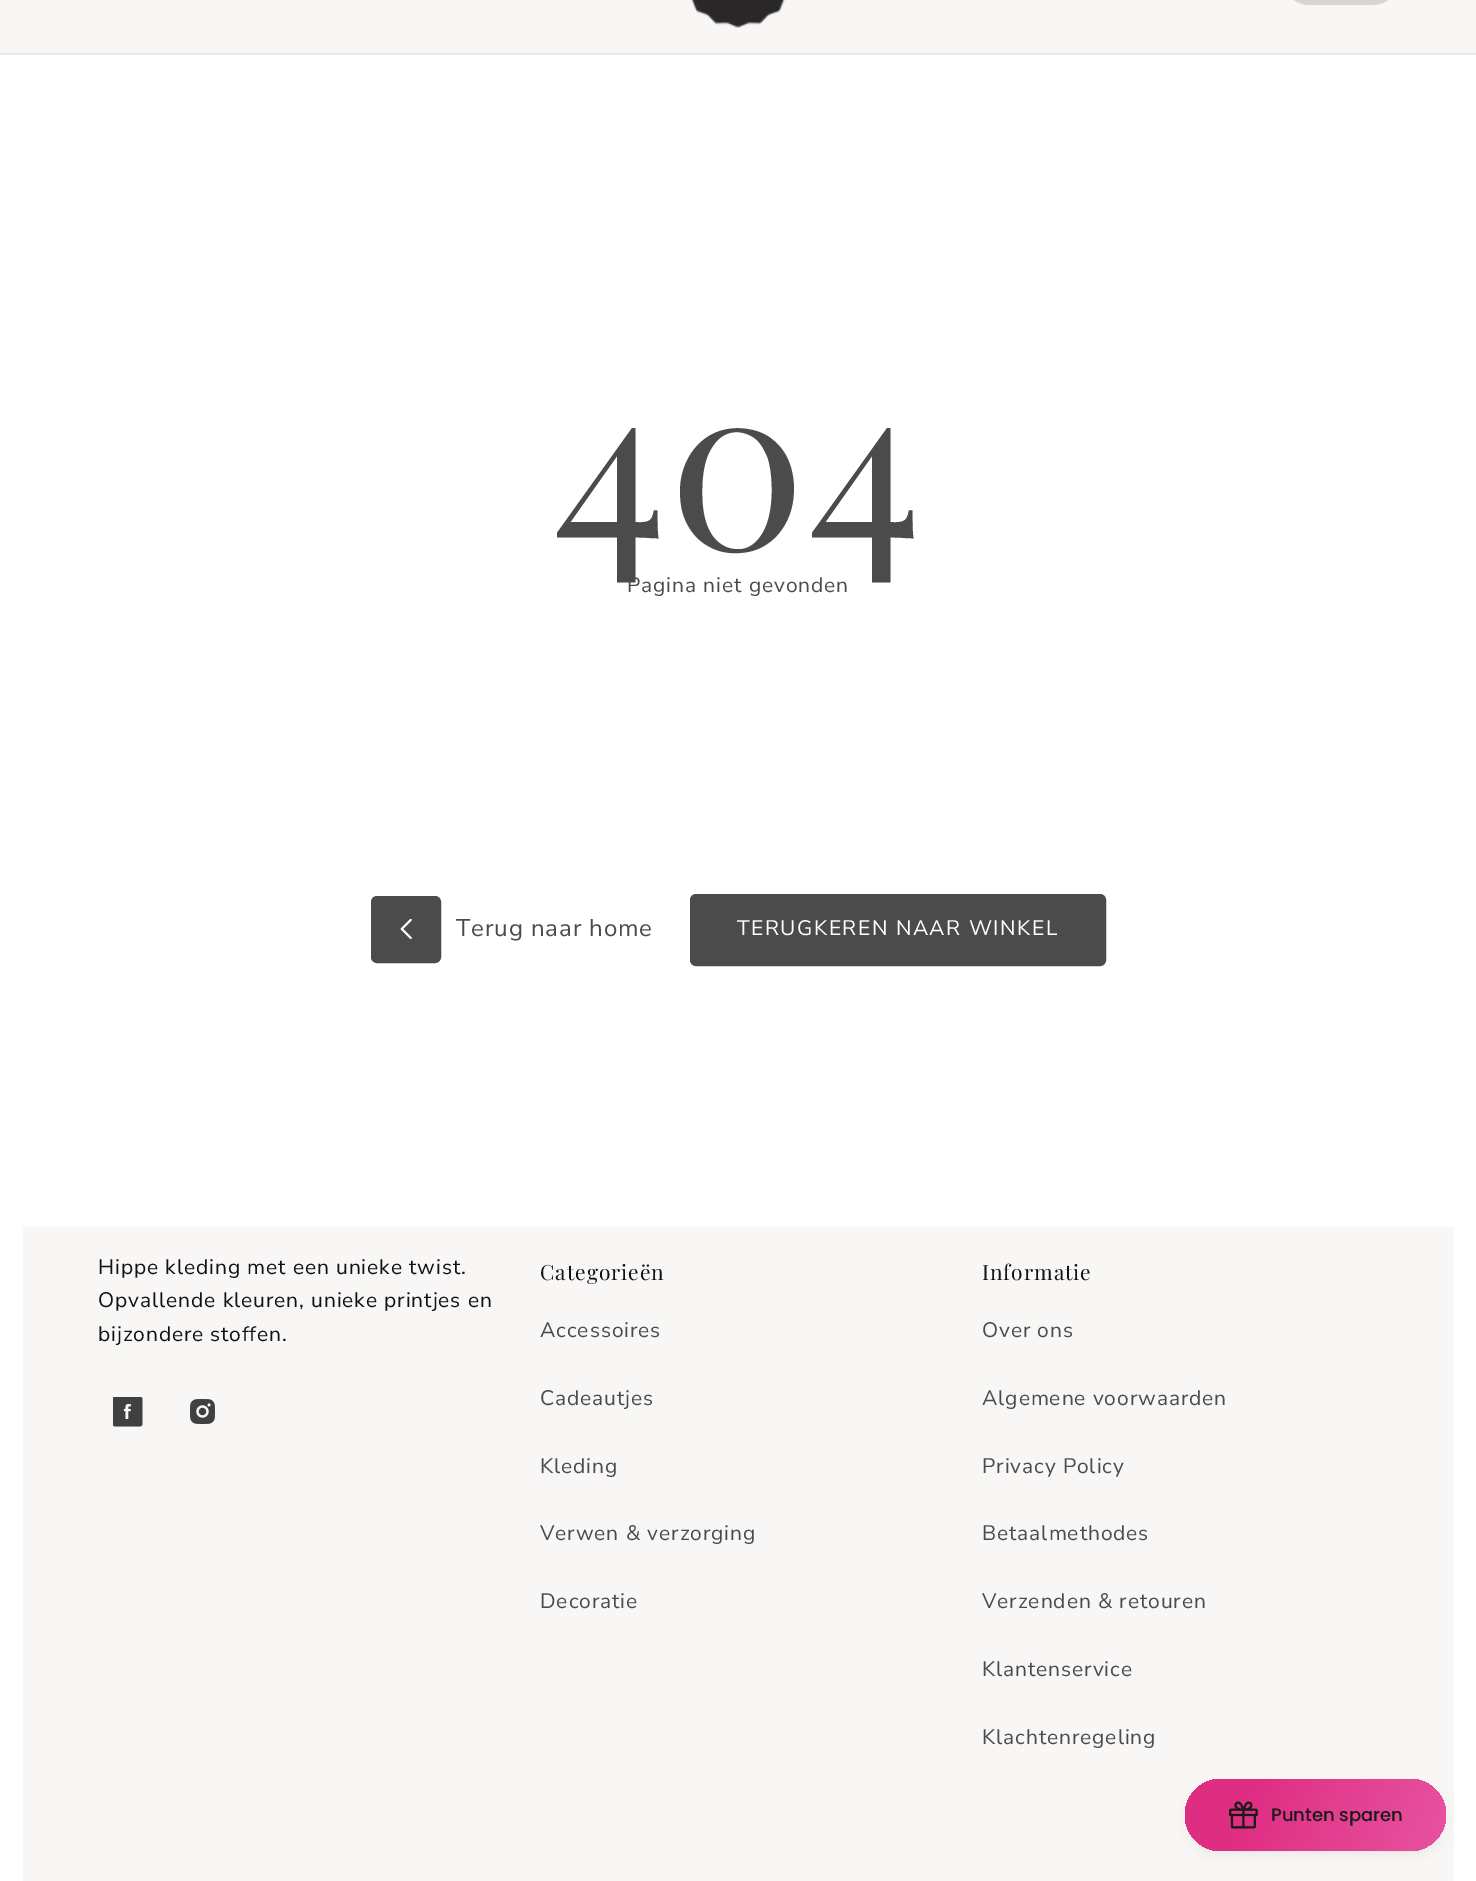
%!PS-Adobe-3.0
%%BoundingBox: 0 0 1476 1881
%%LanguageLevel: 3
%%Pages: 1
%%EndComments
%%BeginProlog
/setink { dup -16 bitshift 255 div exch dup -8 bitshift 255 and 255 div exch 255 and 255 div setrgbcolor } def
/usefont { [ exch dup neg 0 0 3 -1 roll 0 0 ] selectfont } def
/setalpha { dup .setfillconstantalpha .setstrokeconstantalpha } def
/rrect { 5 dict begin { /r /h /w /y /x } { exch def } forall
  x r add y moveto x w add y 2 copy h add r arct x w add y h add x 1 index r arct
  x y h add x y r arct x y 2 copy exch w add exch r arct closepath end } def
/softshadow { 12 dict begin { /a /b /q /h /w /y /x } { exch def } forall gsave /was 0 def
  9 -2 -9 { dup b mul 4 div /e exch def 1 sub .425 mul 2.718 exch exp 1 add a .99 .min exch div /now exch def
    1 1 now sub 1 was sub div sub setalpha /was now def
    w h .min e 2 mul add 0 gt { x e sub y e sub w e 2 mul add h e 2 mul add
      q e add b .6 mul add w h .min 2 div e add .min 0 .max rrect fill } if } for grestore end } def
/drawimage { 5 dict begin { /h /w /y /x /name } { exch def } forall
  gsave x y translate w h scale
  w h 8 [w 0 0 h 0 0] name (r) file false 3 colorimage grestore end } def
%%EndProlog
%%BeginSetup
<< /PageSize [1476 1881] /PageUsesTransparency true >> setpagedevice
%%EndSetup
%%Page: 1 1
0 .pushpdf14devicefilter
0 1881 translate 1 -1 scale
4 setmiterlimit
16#FFFFFF setink
0 0 1476 1881 rectfill
[
    [0 54 1476 1 16#ECECEC]
    [0 0 1476 53 16#F9F7F6]
    [0 53 1476 1 16#E7E5E4]
] { aload pop setink rectfill } forall
16#D6D5D4 setink
1281 -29 120 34 29 rrect fill
(img1.raw) 691 0 94 28 drawimage
/PlayfairDisplay-Regular 231 usefont
16#4B4B4B setink
553 550 moveto 0.9 0 (404) ashow
/NunitoSans-Regular 21 usefont
627 592 moveto 0.9 0 (Pagina niet gevonden) ashow
372 897 68 65 5 rrect gsave fill grestore
2 setlinewidth
stroke
(img2.raw) 400 918 12 22 drawimage
/NunitoSans-Regular 24 usefont
456 936 moveto 0.9 0 (Terug naar home) ashow
691 895 414 70 5 rrect gsave fill grestore
stroke
/NunitoSans-Regular 21 usefont
16#FFFFFF setink
737 935 moveto 1.5 0 (TERUGKEREN NAAR WINKEL) ashow
16#F9F7F6 setink
23 1227 1431 654 rectfill
16#121212 setink
98 1274 moveto 0.9 0 (Hippe kleding met een unieke twist.) ashow
98 1307 moveto 0.9 0 (Opvallende kleuren, unieke printjes en) ashow
98 1341 moveto -1 0 32 0.9 0 (bijzondere stoffen.) awidthshow
(img3.raw) 113 1397 30 30 drawimage
(img4.raw) 190 1399 25 25 drawimage
/PlayfairDisplay-Regular 21 usefont
540 1280 moveto 0.9 0 (Categorieën) ashow
/NunitoSans-Regular 21 usefont
16#4B4B4B setink
540 1337 moveto 0.9 0 (Accessoires) ashow
540 1405 moveto 0.9 0 (Cadeautjes) ashow
540 1473 moveto 0.9 0 (Kleding) ashow
540 1540 moveto 0.9 0 (Verwen & verzorging) ashow
540 1608 moveto 0.9 0 (Decoratie) ashow
/PlayfairDisplay-Regular 21 usefont
16#121212 setink
982 1280 moveto 0.9 0 (Informatie) ashow
/NunitoSans-Regular 21 usefont
16#4B4B4B setink
982 1337 moveto 0.9 0 (Over ons) ashow
982 1405 moveto 0.9 0 (Algemene voorwaarden) ashow
982 1473 moveto 0.9 0 (Privacy Policy) ashow
982 1540 moveto 0.9 0 (Betaalmethodes) ashow
982 1608 moveto 0.9 0 (Verzenden & retouren) ashow
982 1676 moveto 0.9 0 (Klantenservice) ashow
982 1744 moveto 0.9 0 (Klachtenregeling) ashow
16#444444 setink
1188 1788 255 66 33 6 0.08 softshadow
gsave 1185 1779 261 72 36 rrect clip newpath
<< /ShadingType 2 /ColorSpace /DeviceRGB /Coords [1188 1770 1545 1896] /Extend [true true] /Function << /FunctionType 3 /Domain [0 1] /Functions [<< /FunctionType 2 /Domain [0 1] /C0 [0.875 0.18 0.51] /C1 [0.875 0.18 0.51] /N 1 >> << /FunctionType 2 /Domain [0 1] /C0 [0.875 0.18 0.51] /C1 [0.929 0.4 0.698] /N 1 >>] /Bounds [0.17] /Encode [0 1 0 1] >> >> shfill grestore
(img5.raw) 1229 1801 29 28 drawimage
/Poppins-Medium 18 usefont
16#1A1A1A setink
1271 1821 moveto (Punten sparen) show
.poppdf14devicefilter showpage
%%EOF
